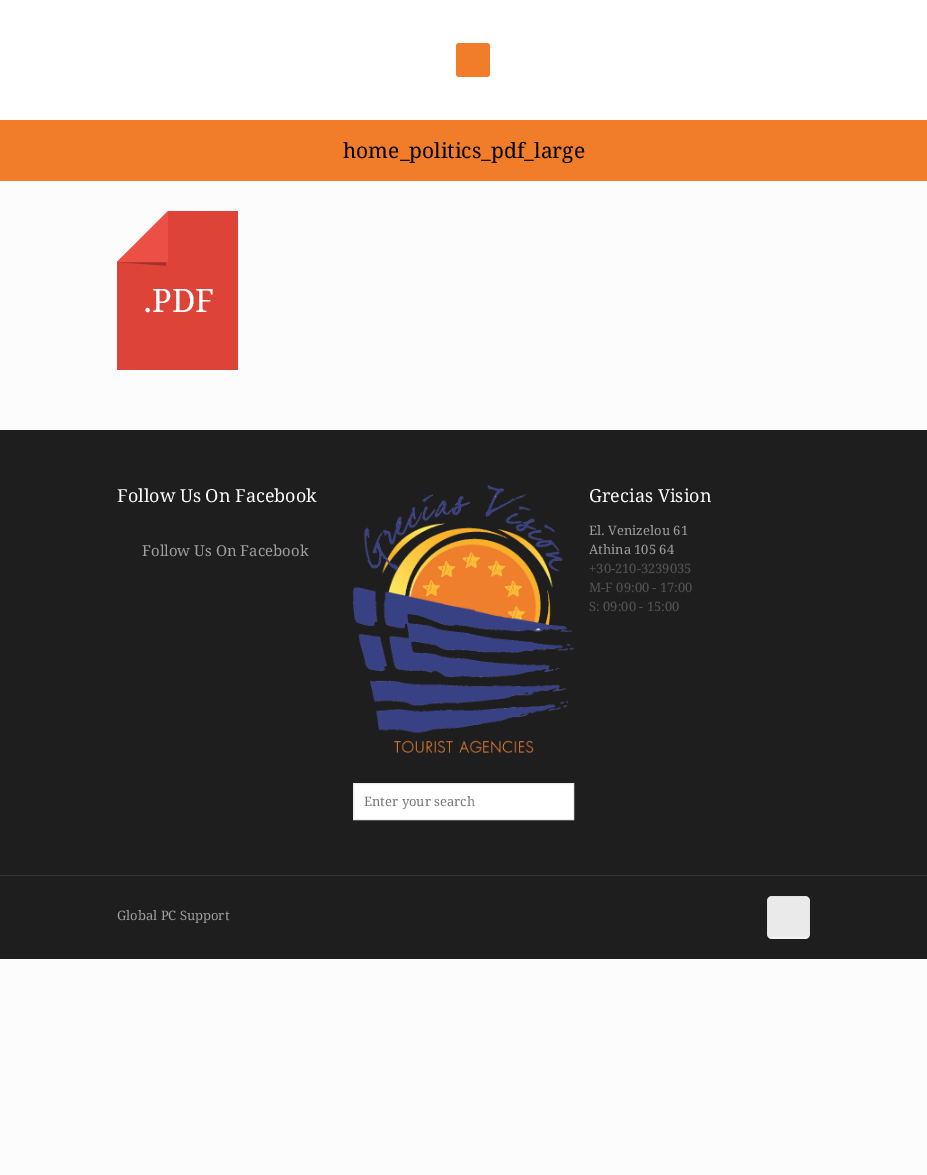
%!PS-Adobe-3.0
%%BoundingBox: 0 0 927 1175
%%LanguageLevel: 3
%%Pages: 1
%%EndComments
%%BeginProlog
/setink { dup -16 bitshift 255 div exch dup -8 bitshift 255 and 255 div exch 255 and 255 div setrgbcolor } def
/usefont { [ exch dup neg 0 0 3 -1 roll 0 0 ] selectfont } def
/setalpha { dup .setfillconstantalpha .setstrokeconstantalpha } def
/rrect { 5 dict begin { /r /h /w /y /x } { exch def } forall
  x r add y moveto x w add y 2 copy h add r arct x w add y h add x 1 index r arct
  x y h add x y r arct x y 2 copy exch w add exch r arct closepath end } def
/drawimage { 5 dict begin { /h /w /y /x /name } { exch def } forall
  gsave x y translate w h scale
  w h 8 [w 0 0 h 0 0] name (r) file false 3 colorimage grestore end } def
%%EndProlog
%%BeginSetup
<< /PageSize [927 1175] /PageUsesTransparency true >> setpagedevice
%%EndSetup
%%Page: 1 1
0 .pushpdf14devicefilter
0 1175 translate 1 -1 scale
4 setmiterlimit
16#FCFCFC setink
0 0 927 1175 rectfill
16#FFFFFF setink
0 0 927 120 rectfill
16#F17D2A setink
456 43 34 34 3 rrect fill
0 120 927 61 rectfill
/DroidSerif-Regular 21 usefont
16#000000 setink
343 158 moveto (home_politics_pdf_large) show
(img1.raw) 117 211 121 159 drawimage
16#1E1E1E setink
0 430 927 529 rectfill
/DroidSerif-Regular 18 usefont
16#FFFFFF setink
117 502 moveto (Follow Us On Facebook) show
/DroidSerif-Regular 15 usefont
16#9F9F9F setink
142 556 moveto (Follow Us On Facebook) show
/DroidSerif-Regular 18 usefont
16#FFFFFF setink
589 502 moveto (Grecias Vision) show
/DroidSerif-Regular 13 usefont
16#9F9F9F setink
589 535 moveto (El. Venizelou 61) show
589 554 moveto (Athina 105 64) show
16#545454 setink
[
    [(+30-210-3239035) 589 573]
    [(M-F 09:00 - 17:00) 589 592]
    [(S: 09:00 - 15:00) 589 611]
] { aload pop moveto show } forall
(img2.raw) 353 485 221 268 drawimage
16#FFFFFF setink
353.5 783.5 moveto 573.5 783.5 lineto 573.5 819.5 lineto 353.5 819.5 lineto closepath gsave fill grestore
16#EBEBEB setink
stroke
16#757575 setink
364 806 moveto (Enter your search) show
16#353535 setink
0 875 927 1 rectfill
16#9F9F9F setink
117 920 moveto (Global PC Support) show
16#F7F7F7 setink
767 896 43 43 5 rrect fill
0.03 setalpha
16#000000 setink
767.5 896.5 42 42 rectstroke
0.05 setalpha
767 896 43 41 rectfill
.poppdf14devicefilter showpage
%%EOF
